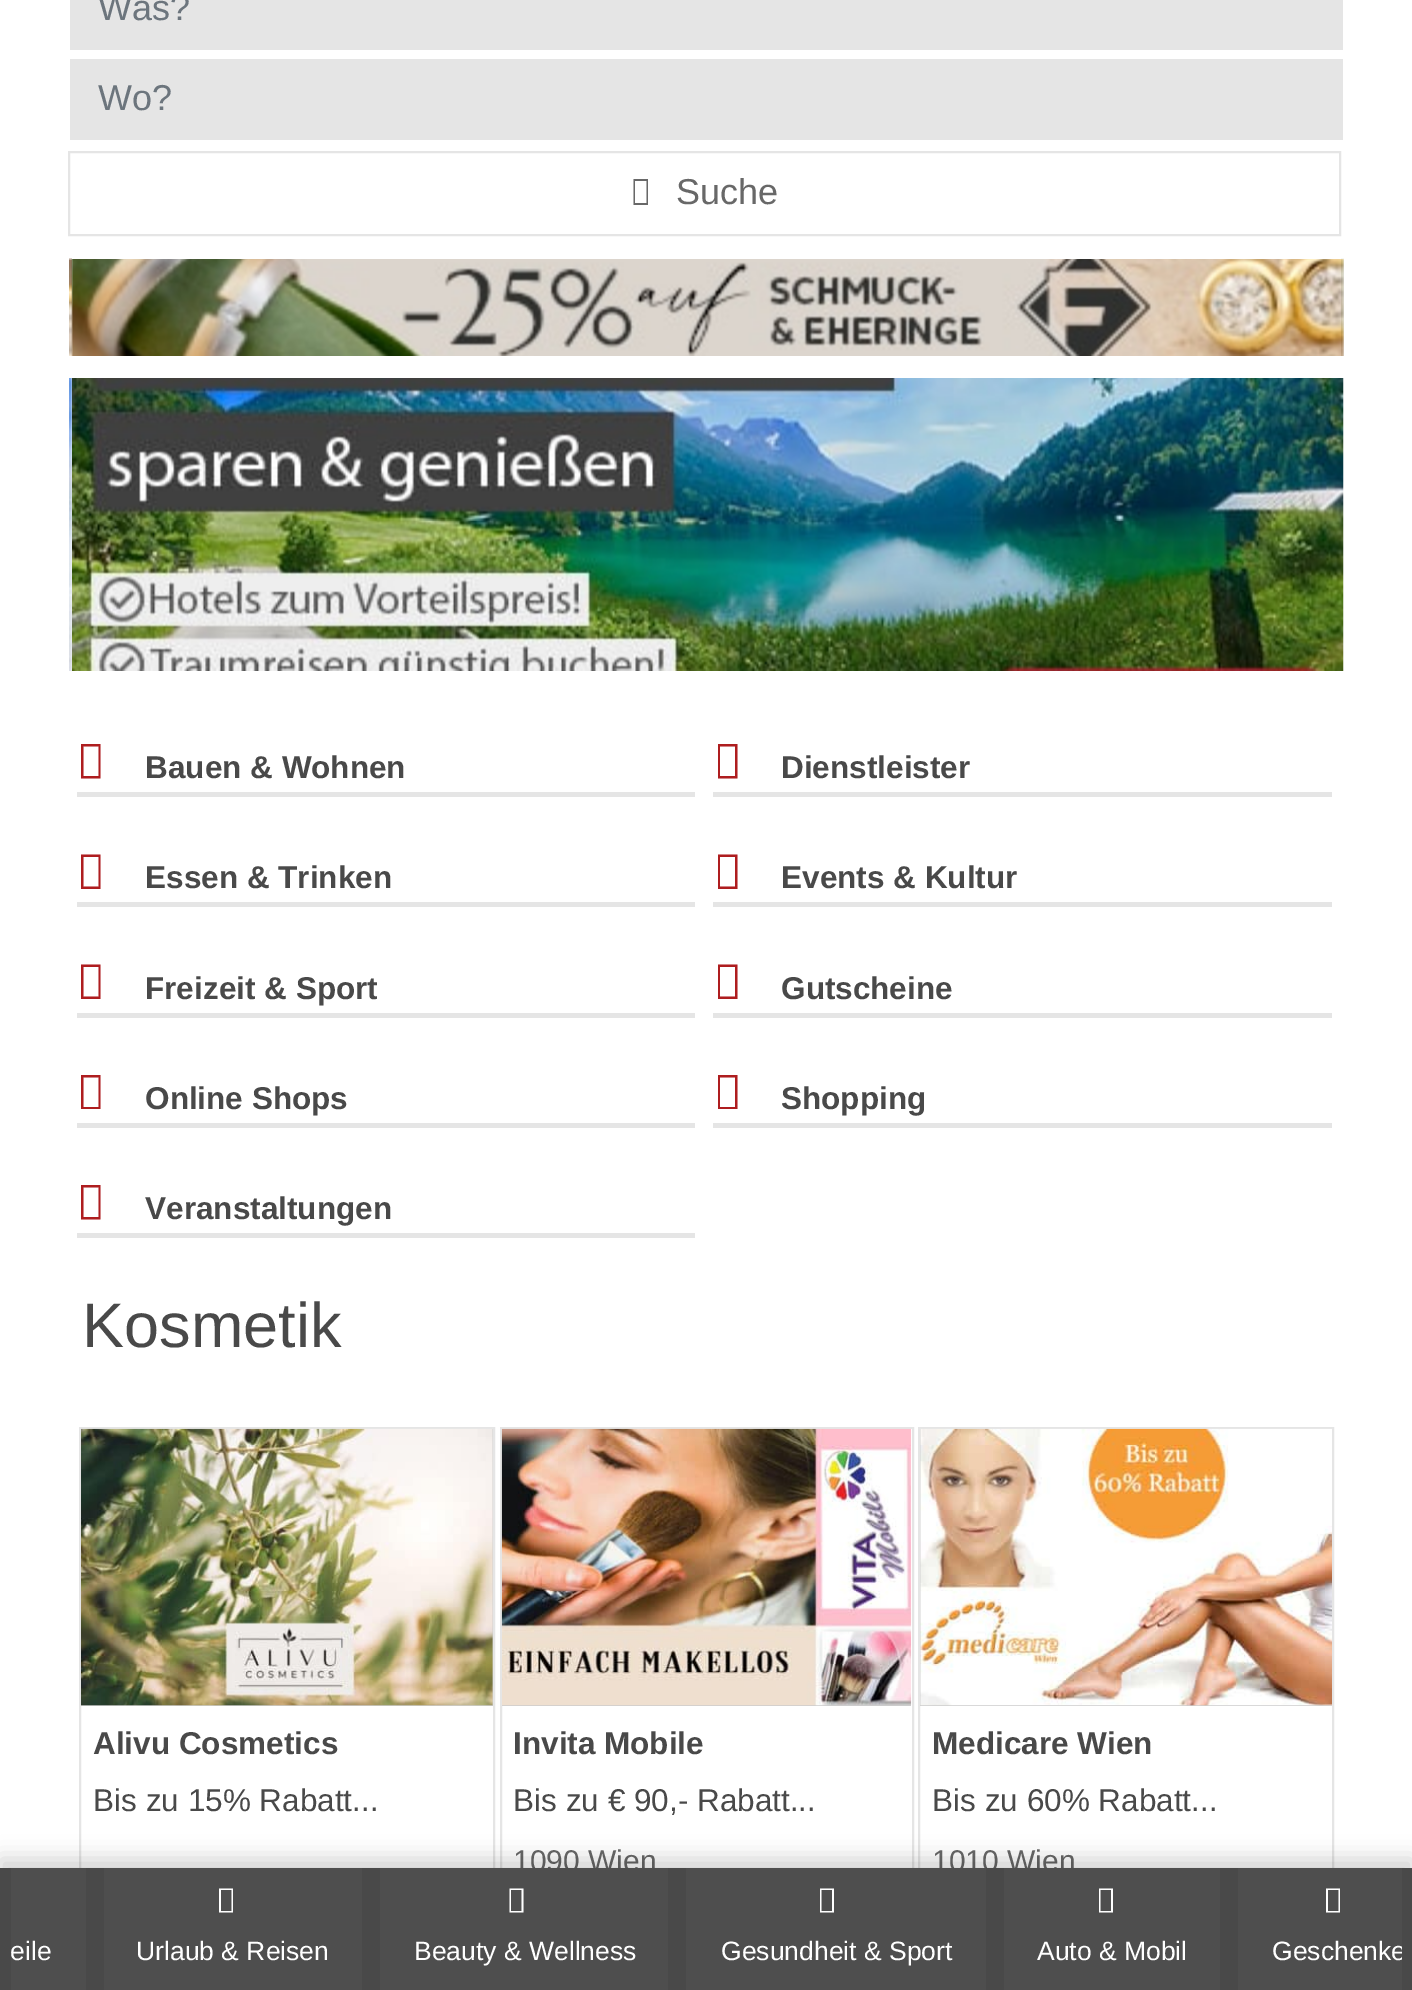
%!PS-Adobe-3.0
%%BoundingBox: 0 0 1412 1990
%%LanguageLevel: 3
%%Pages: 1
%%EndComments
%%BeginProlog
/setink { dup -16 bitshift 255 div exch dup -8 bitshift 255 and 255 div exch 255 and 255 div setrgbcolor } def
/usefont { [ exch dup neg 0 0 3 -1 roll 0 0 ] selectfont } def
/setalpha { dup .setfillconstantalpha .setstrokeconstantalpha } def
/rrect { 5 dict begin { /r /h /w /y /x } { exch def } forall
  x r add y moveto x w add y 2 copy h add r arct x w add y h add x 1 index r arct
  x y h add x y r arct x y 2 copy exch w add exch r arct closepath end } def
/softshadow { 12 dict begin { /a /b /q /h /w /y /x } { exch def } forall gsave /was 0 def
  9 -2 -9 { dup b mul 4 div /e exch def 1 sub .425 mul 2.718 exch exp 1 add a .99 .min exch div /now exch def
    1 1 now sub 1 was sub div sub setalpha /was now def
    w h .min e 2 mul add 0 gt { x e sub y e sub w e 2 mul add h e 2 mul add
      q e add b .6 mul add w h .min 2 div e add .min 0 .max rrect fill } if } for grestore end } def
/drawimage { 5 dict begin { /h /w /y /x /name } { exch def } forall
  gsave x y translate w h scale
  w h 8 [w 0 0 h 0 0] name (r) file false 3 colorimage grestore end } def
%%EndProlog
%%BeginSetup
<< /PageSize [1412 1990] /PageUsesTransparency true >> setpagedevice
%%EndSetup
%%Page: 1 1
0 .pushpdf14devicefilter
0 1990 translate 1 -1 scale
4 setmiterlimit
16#FFFFFF setink
0 0 1412 1990 rectfill
16#E5E5E5 setink
70 0 1273 50 rectfill
/LiberationSans-Regular 36 usefont
16#6C757D setink
98 20 moveto (Was?) show
16#E5E5E5 setink
70 59 1273 81 rectfill
16#6C757D setink
98 110 moveto (Wo?) show
16#E5E5E5 setink
2 setlinewidth
69 152 1271 83 rectstroke
16#686868 setink
633.5 205 moveto 633.5 179 lineto 648 179 lineto 648 205 lineto closepath 635 203 moveto 646.5 203 lineto 646.5 181 lineto 635 181 lineto closepath fill
676 204 moveto (Suche) show
(img1.raw) 69 258 3 98 drawimage
(img3.raw) 71 259 1273 97 drawimage
(img2.raw) 1341 258 3 98 drawimage
(img4.raw) 69 378 3 293 drawimage
(img5.raw) 72 378 1272 293 drawimage
16#AE1D1F setink
81 778.5 moveto 81 744 lineto 100.5 744 lineto 100.5 778.5 lineto closepath 83.5 776 moveto 98.5 776 lineto 98.5 746.5 lineto 83.5 746.5 lineto closepath fill
/LiberationSans-Bold 31.5 usefont
16#494949 setink
145 778 moveto (Bauen & Wohnen) show
16#E5E5E5 setink
77 792 618 5 rectfill
16#AE1D1F setink
718 778.5 moveto 718 744 lineto 737.5 744 lineto 737.5 778.5 lineto closepath 720 776 moveto 735 776 lineto 735 746.5 lineto 720 746.5 lineto closepath fill
16#494949 setink
781 778 moveto (Dienstleister) show
16#E5E5E5 setink
713 792 619 5 rectfill
16#AE1D1F setink
81 889 moveto 81 854.5 lineto 100.5 854.5 lineto 100.5 889 lineto closepath 83.5 886.5 moveto 98.5 886.5 lineto 98.5 857 lineto 83.5 857 lineto closepath fill
16#494949 setink
145 888 moveto (Essen & Trinken) show
16#E5E5E5 setink
77 902 618 5 rectfill
16#AE1D1F setink
718 889 moveto 718 854.5 lineto 737.5 854.5 lineto 737.5 889 lineto closepath 720 886.5 moveto 735 886.5 lineto 735 857 lineto 720 857 lineto closepath fill
16#494949 setink
781 888 moveto (Events & Kultur) show
16#E5E5E5 setink
713 902 619 5 rectfill
16#AE1D1F setink
81 999 moveto 81 964.5 lineto 100.5 964.5 lineto 100.5 999 lineto closepath 83.5 996.5 moveto 98.5 996.5 lineto 98.5 967 lineto 83.5 967 lineto closepath fill
16#494949 setink
145 999 moveto (Freizeit & Sport) show
16#E5E5E5 setink
77 1013 618 5 rectfill
16#AE1D1F setink
718 999 moveto 718 964.5 lineto 737.5 964.5 lineto 737.5 999 lineto closepath 720 996.5 moveto 735 996.5 lineto 735 967 lineto 720 967 lineto closepath fill
16#494949 setink
781 999 moveto (Gutscheine) show
16#E5E5E5 setink
713 1013 619 5 rectfill
16#AE1D1F setink
81 1109 moveto 81 1075 lineto 100.5 1075 lineto 100.5 1109 lineto closepath 83.5 1107 moveto 98.5 1107 lineto 98.5 1077.5 lineto 83.5 1077.5 lineto closepath fill
16#494949 setink
145 1109 moveto (Online Shops) show
16#E5E5E5 setink
77 1123 618 5 rectfill
16#AE1D1F setink
718 1109 moveto 718 1075 lineto 737.5 1075 lineto 737.5 1109 lineto closepath 720 1107 moveto 735 1107 lineto 735 1077.5 lineto 720 1077.5 lineto closepath fill
16#494949 setink
781 1109 moveto (Shopping) show
16#E5E5E5 setink
713 1123 619 5 rectfill
16#AE1D1F setink
81 1219.5 moveto 81 1185 lineto 100.5 1185 lineto 100.5 1219.5 lineto closepath 83.5 1217 moveto 98.5 1217 lineto 98.5 1187.5 lineto 83.5 1187.5 lineto closepath fill
16#494949 setink
145 1219 moveto (Veranstaltungen) show
16#E5E5E5 setink
77 1233 618 5 rectfill
/LiberationSans-Regular 63 usefont
16#494949 setink
82 1347 moveto (Kosmetik) show
16#E5E5E5 setink
80 1428 414 477 rectstroke
16#CCCCCC setink
81 1429 412 277 rectfill
(img6.raw) 81 1428 412 278 drawimage
/LiberationSans-Bold 31.5 usefont
16#494949 setink
93 1754 moveto (Alivu Cosmetics) show
/LiberationSans-Regular 31.5 usefont
93 1811 moveto (Bis zu 15% Rabatt...) show
16#E5E5E5 setink
501 1428 412 477 rectstroke
16#CCCCCC setink
502 1705 409 1 rectfill
(img7.raw) 501 1428 411 278 drawimage
/LiberationSans-Bold 31.5 usefont
16#494949 setink
513 1754 moveto (Invita Mobile) show
/LiberationSans-Regular 31.5 usefont
513 1811 moveto (Bis zu € 90,- Rabatt...) show
/LiberationSans-Regular 30 usefont
16#686868 setink
513 1871 moveto (1090 Wien) show
16#E5E5E5 setink
919 1428 414 477 rectstroke
16#CCCCCC setink
920 1429 412 277 rectfill
(img8.raw) 920 1428 412 278 drawimage
/LiberationSans-Bold 31.5 usefont
16#494949 setink
932 1754 moveto (Medicare Wien) show
/LiberationSans-Regular 31.5 usefont
932 1811 moveto (Bis zu 60% Rabatt...) show
/LiberationSans-Regular 30 usefont
16#686868 setink
932 1871 moveto (1010 Wien) show
16#000000 setink
0 1859 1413 123 0 11 0.18 softshadow
16#494949 setink
0 1868 1412 122 rectfill
16#4E4E4E setink
11 1868 75 122 rectfill
/LiberationSans-Regular 26.5 usefont
16#FFFFFF setink
10 1960 moveto (eile) show
16#4E4E4E setink
104 1868 258 122 rectfill
16#FFFFFF setink
219 1912.5 moveto 219 1888.5 lineto 233 1888.5 lineto 233 1912.5 lineto closepath 221 1911 moveto 231.5 1911 lineto 231.5 1890 lineto 221 1890 lineto closepath fill
136 1960 moveto (Urlaub & Reisen) show
16#4E4E4E setink
380 1868 288 122 rectfill
16#FFFFFF setink
509.5 1912.5 moveto 509.5 1888.5 lineto 523.5 1888.5 lineto 523.5 1912.5 lineto closepath 511 1911 moveto 521.5 1911 lineto 521.5 1890 lineto 511 1890 lineto closepath fill
414 1960 moveto (Beauty & Wellness) show
16#4E4E4E setink
686 1868 300 122 rectfill
16#FFFFFF setink
820 1912.5 moveto 820 1888.5 lineto 834 1888.5 lineto 834 1912.5 lineto closepath 821.5 1911 moveto 832 1911 lineto 832 1890 lineto 821.5 1890 lineto closepath fill
721 1960 moveto (Gesundheit & Sport) show
16#4E4E4E setink
1004 1868 216 122 rectfill
16#FFFFFF setink
1099 1912.5 moveto 1099 1888.5 lineto 1113 1888.5 lineto 1113 1912.5 lineto closepath 1100.5 1911 moveto 1111 1911 lineto 1111 1890 lineto 1100.5 1890 lineto closepath fill
1037 1960 moveto (Auto & Mobil) show
16#4E4E4E setink
1238 1868 164 122 rectfill
16#FFFFFF setink
1326 1912.5 moveto 1326 1888.5 lineto 1340 1888.5 lineto 1340 1912.5 lineto closepath 1328 1911 moveto 1338.5 1911 lineto 1338.5 1890 lineto 1328 1890 lineto closepath fill
gsave
11 1868 1391 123 rectclip
1272 1960 moveto (Geschenke) show
grestore
.poppdf14devicefilter showpage
%%EOF
